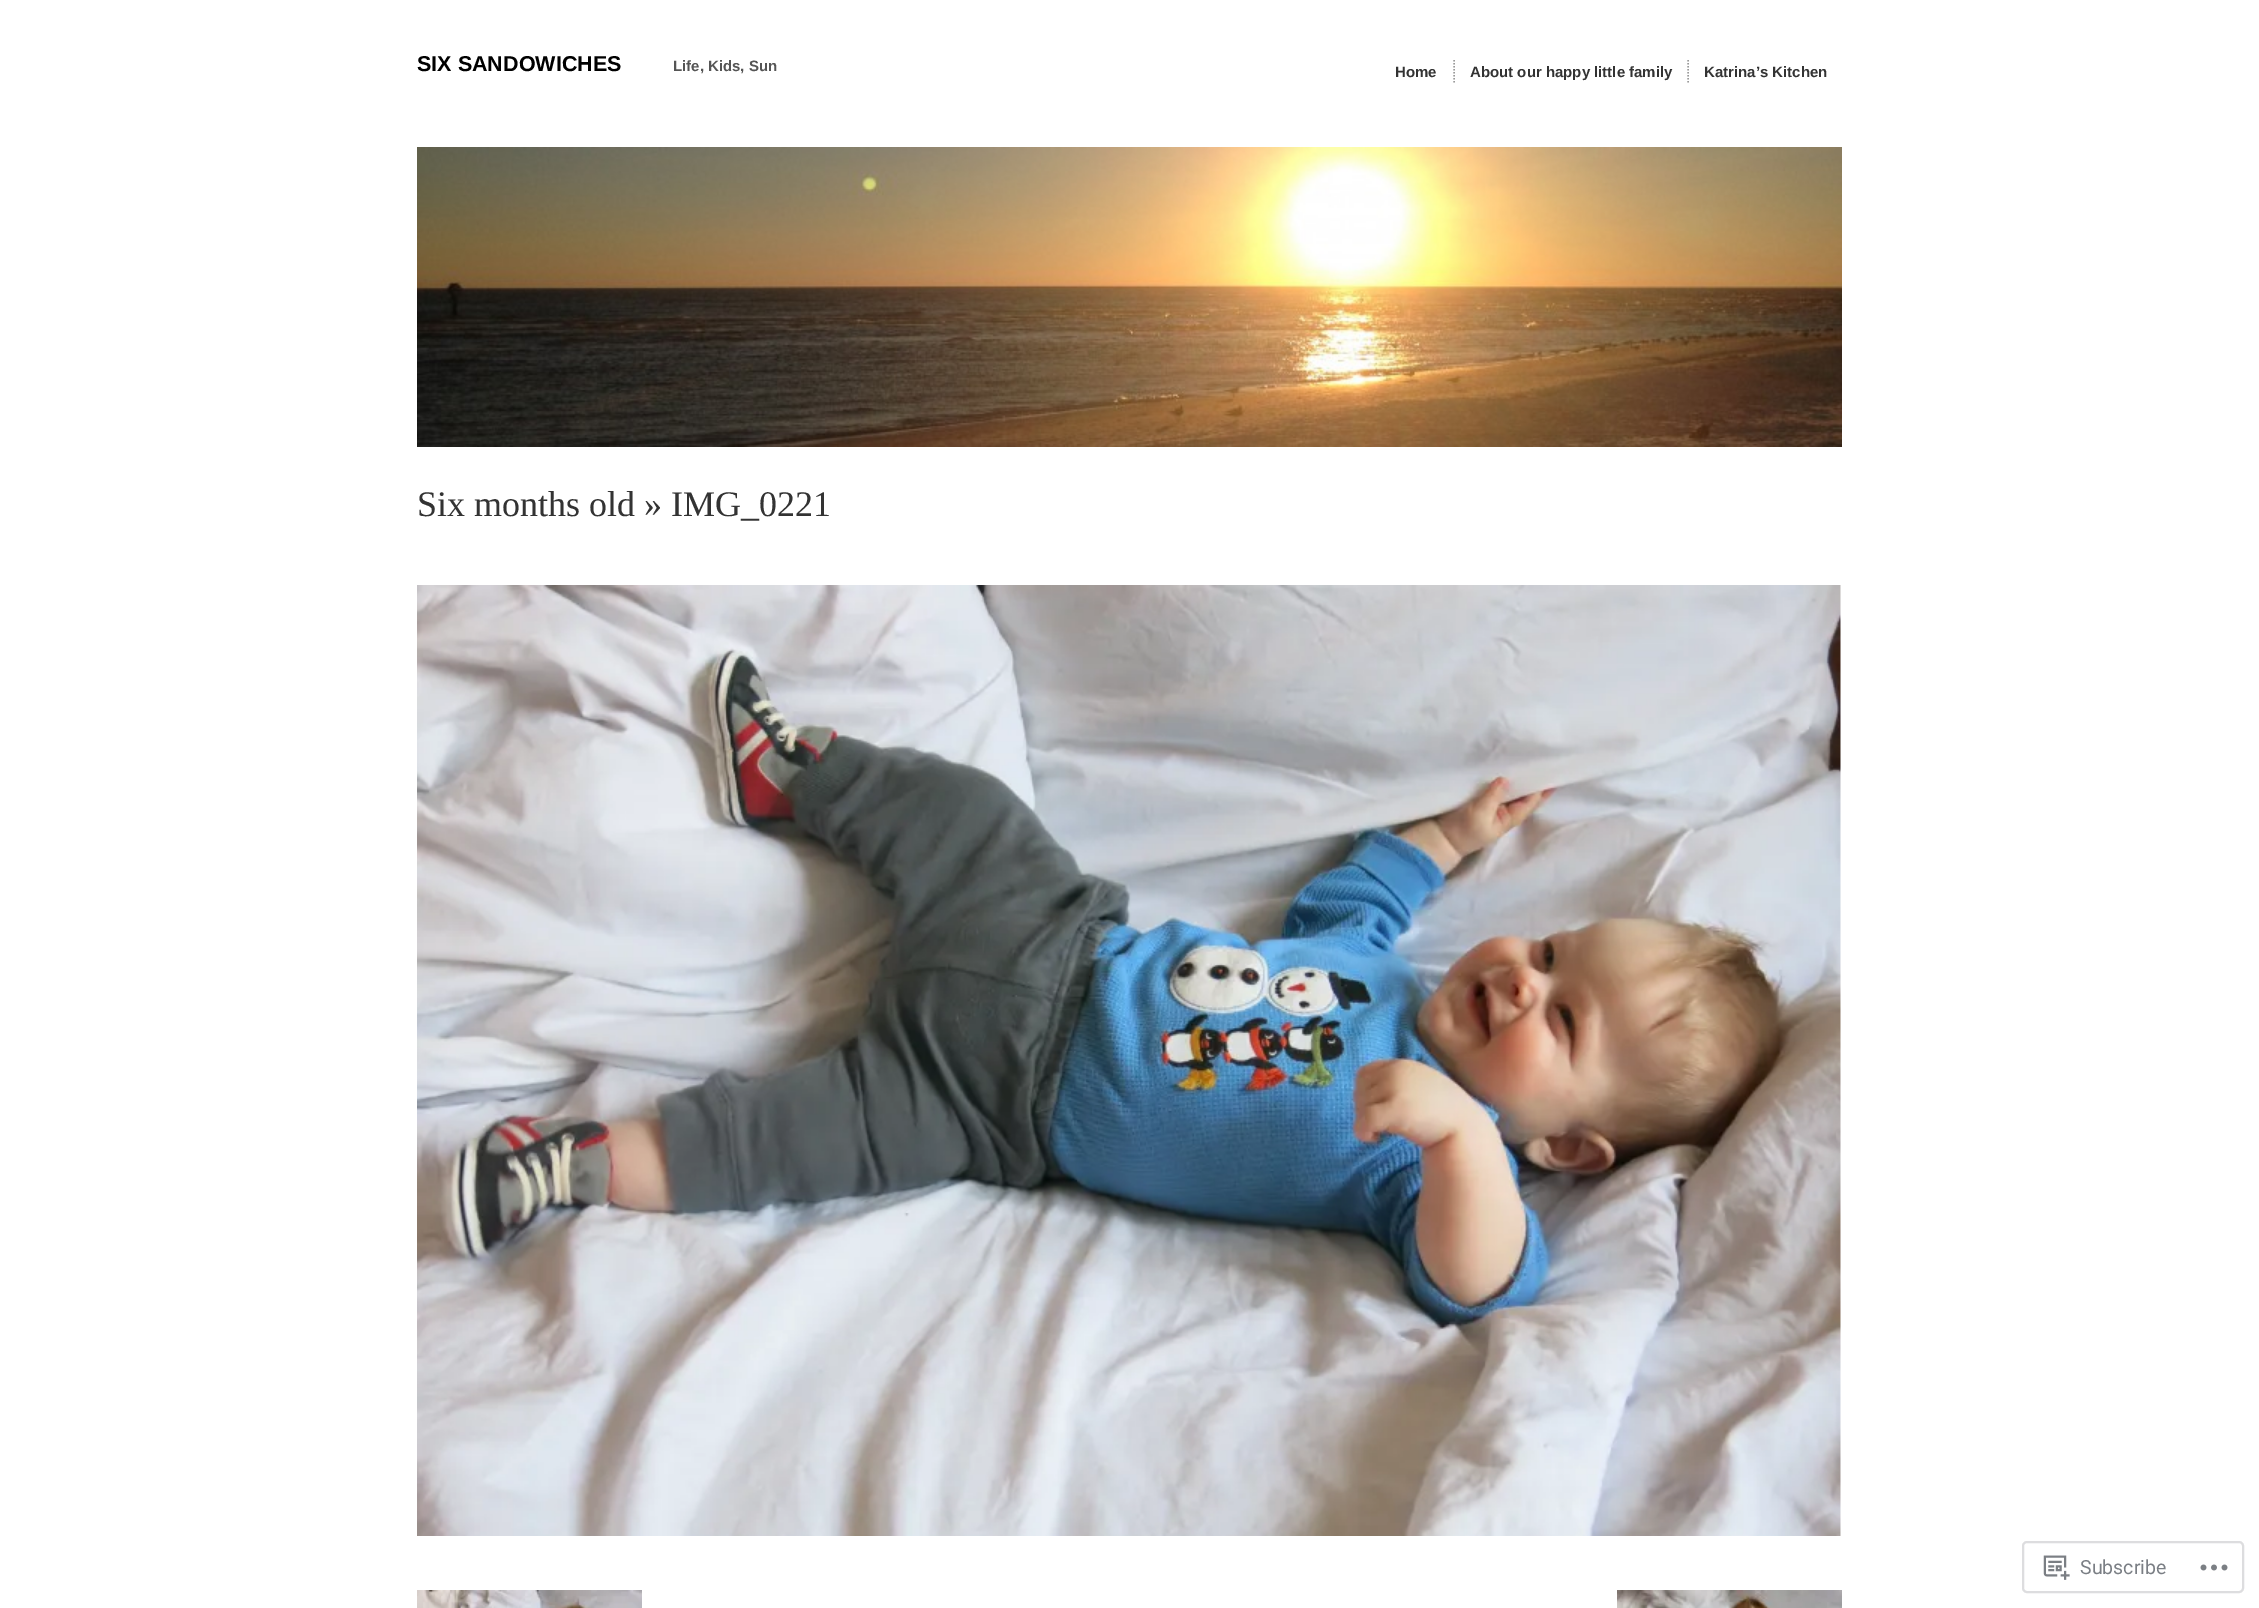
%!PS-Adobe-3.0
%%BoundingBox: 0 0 2259 1608
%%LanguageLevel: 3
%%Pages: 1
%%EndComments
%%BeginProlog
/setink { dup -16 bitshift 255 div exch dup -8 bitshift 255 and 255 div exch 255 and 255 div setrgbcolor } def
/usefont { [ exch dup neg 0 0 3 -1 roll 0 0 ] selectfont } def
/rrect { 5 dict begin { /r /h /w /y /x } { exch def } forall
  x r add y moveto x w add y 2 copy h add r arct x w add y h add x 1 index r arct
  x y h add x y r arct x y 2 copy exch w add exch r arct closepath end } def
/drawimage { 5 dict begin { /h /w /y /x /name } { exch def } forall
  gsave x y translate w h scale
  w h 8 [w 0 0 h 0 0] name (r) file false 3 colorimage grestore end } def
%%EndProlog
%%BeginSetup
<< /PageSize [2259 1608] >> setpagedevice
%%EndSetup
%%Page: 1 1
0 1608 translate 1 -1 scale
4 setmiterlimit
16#FFFFFF setink
0 0 2259 1608 rectfill
/LiberationSans-Bold 21.5 usefont
16#000000 setink
417 71 moveto (SIX SANDOWICHES) show
/LiberationSans-Bold 15 usefont
16#555555 setink
673 71 moveto (Life, Kids, Sun) show
16#999999 setink
1.5 setlinewidth
[1.5 1.5] 0 setdash
1454 60 moveto 1454 82.5 lineto stroke
16#333333 setink
1395 77 moveto (Home) show
16#999999 setink
1688 60 moveto 1688 82.5 lineto stroke
16#333333 setink
1470 77 moveto (About our happy little family) show
1704 77 moveto (Katrina’s Kitchen) show
(img1.raw) 417 147 1425 300 drawimage
/LiberationSerif-Regular 36 usefont
417 516 moveto (Six months old » IMG_0221) show
(img2.raw) 417 585 1424 951 drawimage
(img3.raw) 417 1590 225 18 drawimage
(img4.raw) 1617 1590 225 18 drawimage
16#DDDDDF setink
2 setlinewidth
[] 0 setdash
2023 1542 220 50 4 rrect stroke
(img5.raw) 2043 1555 27 25 drawimage
/Roboto-Regular 19.5 usefont
16#7B7F85 setink
2080 1574 moveto (Subscribe) show
(img6.raw) 2200 1564 28 7 drawimage
showpage
%%EOF
